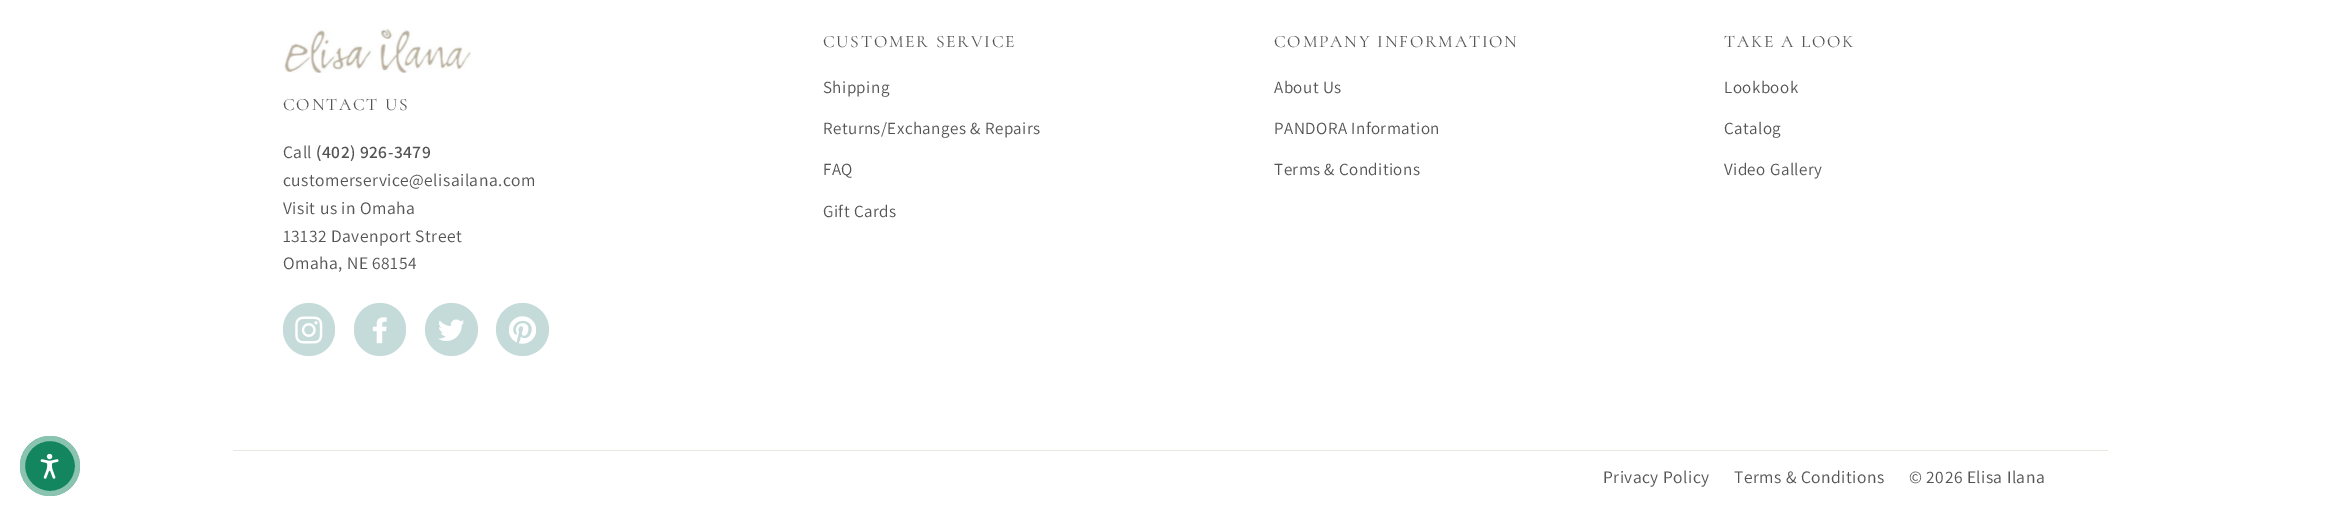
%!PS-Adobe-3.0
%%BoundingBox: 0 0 2339 516
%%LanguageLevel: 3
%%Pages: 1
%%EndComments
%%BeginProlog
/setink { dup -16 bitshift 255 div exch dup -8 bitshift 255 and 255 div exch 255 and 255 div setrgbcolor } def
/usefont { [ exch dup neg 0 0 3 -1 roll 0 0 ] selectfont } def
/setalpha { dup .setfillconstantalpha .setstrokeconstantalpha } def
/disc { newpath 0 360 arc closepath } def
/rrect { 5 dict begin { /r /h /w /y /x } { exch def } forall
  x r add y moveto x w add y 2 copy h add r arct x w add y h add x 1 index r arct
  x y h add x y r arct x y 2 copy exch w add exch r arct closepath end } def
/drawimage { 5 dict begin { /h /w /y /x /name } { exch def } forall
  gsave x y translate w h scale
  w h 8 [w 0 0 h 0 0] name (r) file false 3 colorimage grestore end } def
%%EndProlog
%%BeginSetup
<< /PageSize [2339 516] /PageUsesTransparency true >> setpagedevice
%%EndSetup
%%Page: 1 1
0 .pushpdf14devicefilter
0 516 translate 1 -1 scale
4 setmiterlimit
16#FFFFFF setink
0 0 2339 516 rectfill
16#14865F setink
50 466 30 disc fill
0.5 setalpha
16#FFFFFF setink
5 setlinewidth
50 466 27.5 disc stroke
1 setalpha
(img1.raw) 40 454 19 25 drawimage
16#E8E8E1 setink
233 450 1875 1 rectfill
(img2.raw) 284 28 187 45 drawimage
/Cormorant-Regular 17.5 usefont
16#545454 setink
283 110 moveto 1.75 0 (CONTACT US) ashow
/Assistant-Regular 17.5 usefont
283 158 moveto 0.45 0 (Call) ashow
/Assistant-SemiBold 17.5 usefont
316 158 moveto 0.45 0 (\(402\) 926-3479) ashow
/Assistant-Regular 17.5 usefont
283 186 moveto 0.45 0 (customerservice@elisailana.com) ashow
283 214 moveto 0.45 0 (Visit us in Omaha) ashow
283 242 moveto 0.45 0 (13132 Davenport Street) ashow
283 269 moveto 0.45 0 (Omaha, NE 68154) ashow
/Cormorant-Regular 17.5 usefont
823 47 moveto 1.75 0 (CUSTOMER SERVICE) ashow
/Assistant-Regular 17 usefont
823 93 moveto 0.45 0 (Shipping) ashow
823 134 moveto 0.45 0 (Returns/Exchanges & Repairs) ashow
823 175 moveto 0.45 0 (FAQ) ashow
823 217 moveto 0.45 0 (Gift Cards) ashow
/Cormorant-Regular 17.5 usefont
1274 47 moveto 1.75 0 (COMPANY INFORMATION) ashow
/Assistant-Regular 17 usefont
1274 93 moveto 0.45 0 (About Us) ashow
1274 134 moveto 0.45 0 (PANDORA Information) ashow
1274 175 moveto 0.45 0 (Terms & Conditions) ashow
/Cormorant-Regular 17.5 usefont
1724 47 moveto 1.75 0 (TAKE A LOOK) ashow
/Assistant-Regular 17 usefont
1724 93 moveto 0.45 0 (Lookbook) ashow
1724 134 moveto 0.45 0 (Catalog) ashow
1724 175 moveto 0.45 0 (Video Gallery) ashow
16#C4DBDA setink
283 303 52 53 26 rrect fill
(img3.raw) 295 316 28 28 drawimage
354 303 52 53 26 rrect fill
(img4.raw) 372 317 15 27 drawimage
451.5 329.5 26.5 disc fill
(img5.raw) 438 319 26 22 drawimage
522.5 329.5 26.5 disc fill
(img6.raw) 509 316 27 28 drawimage
/Assistant-Regular 17.5 usefont
16#545454 setink
1603 483 moveto 0.45 0 (Privacy Policy) ashow
1734 483 moveto 0.45 0 (Terms & Conditions) ashow
1909 483 moveto 0.45 0 (© 2026 Elisa Ilana) ashow
.poppdf14devicefilter showpage
%%EOF
